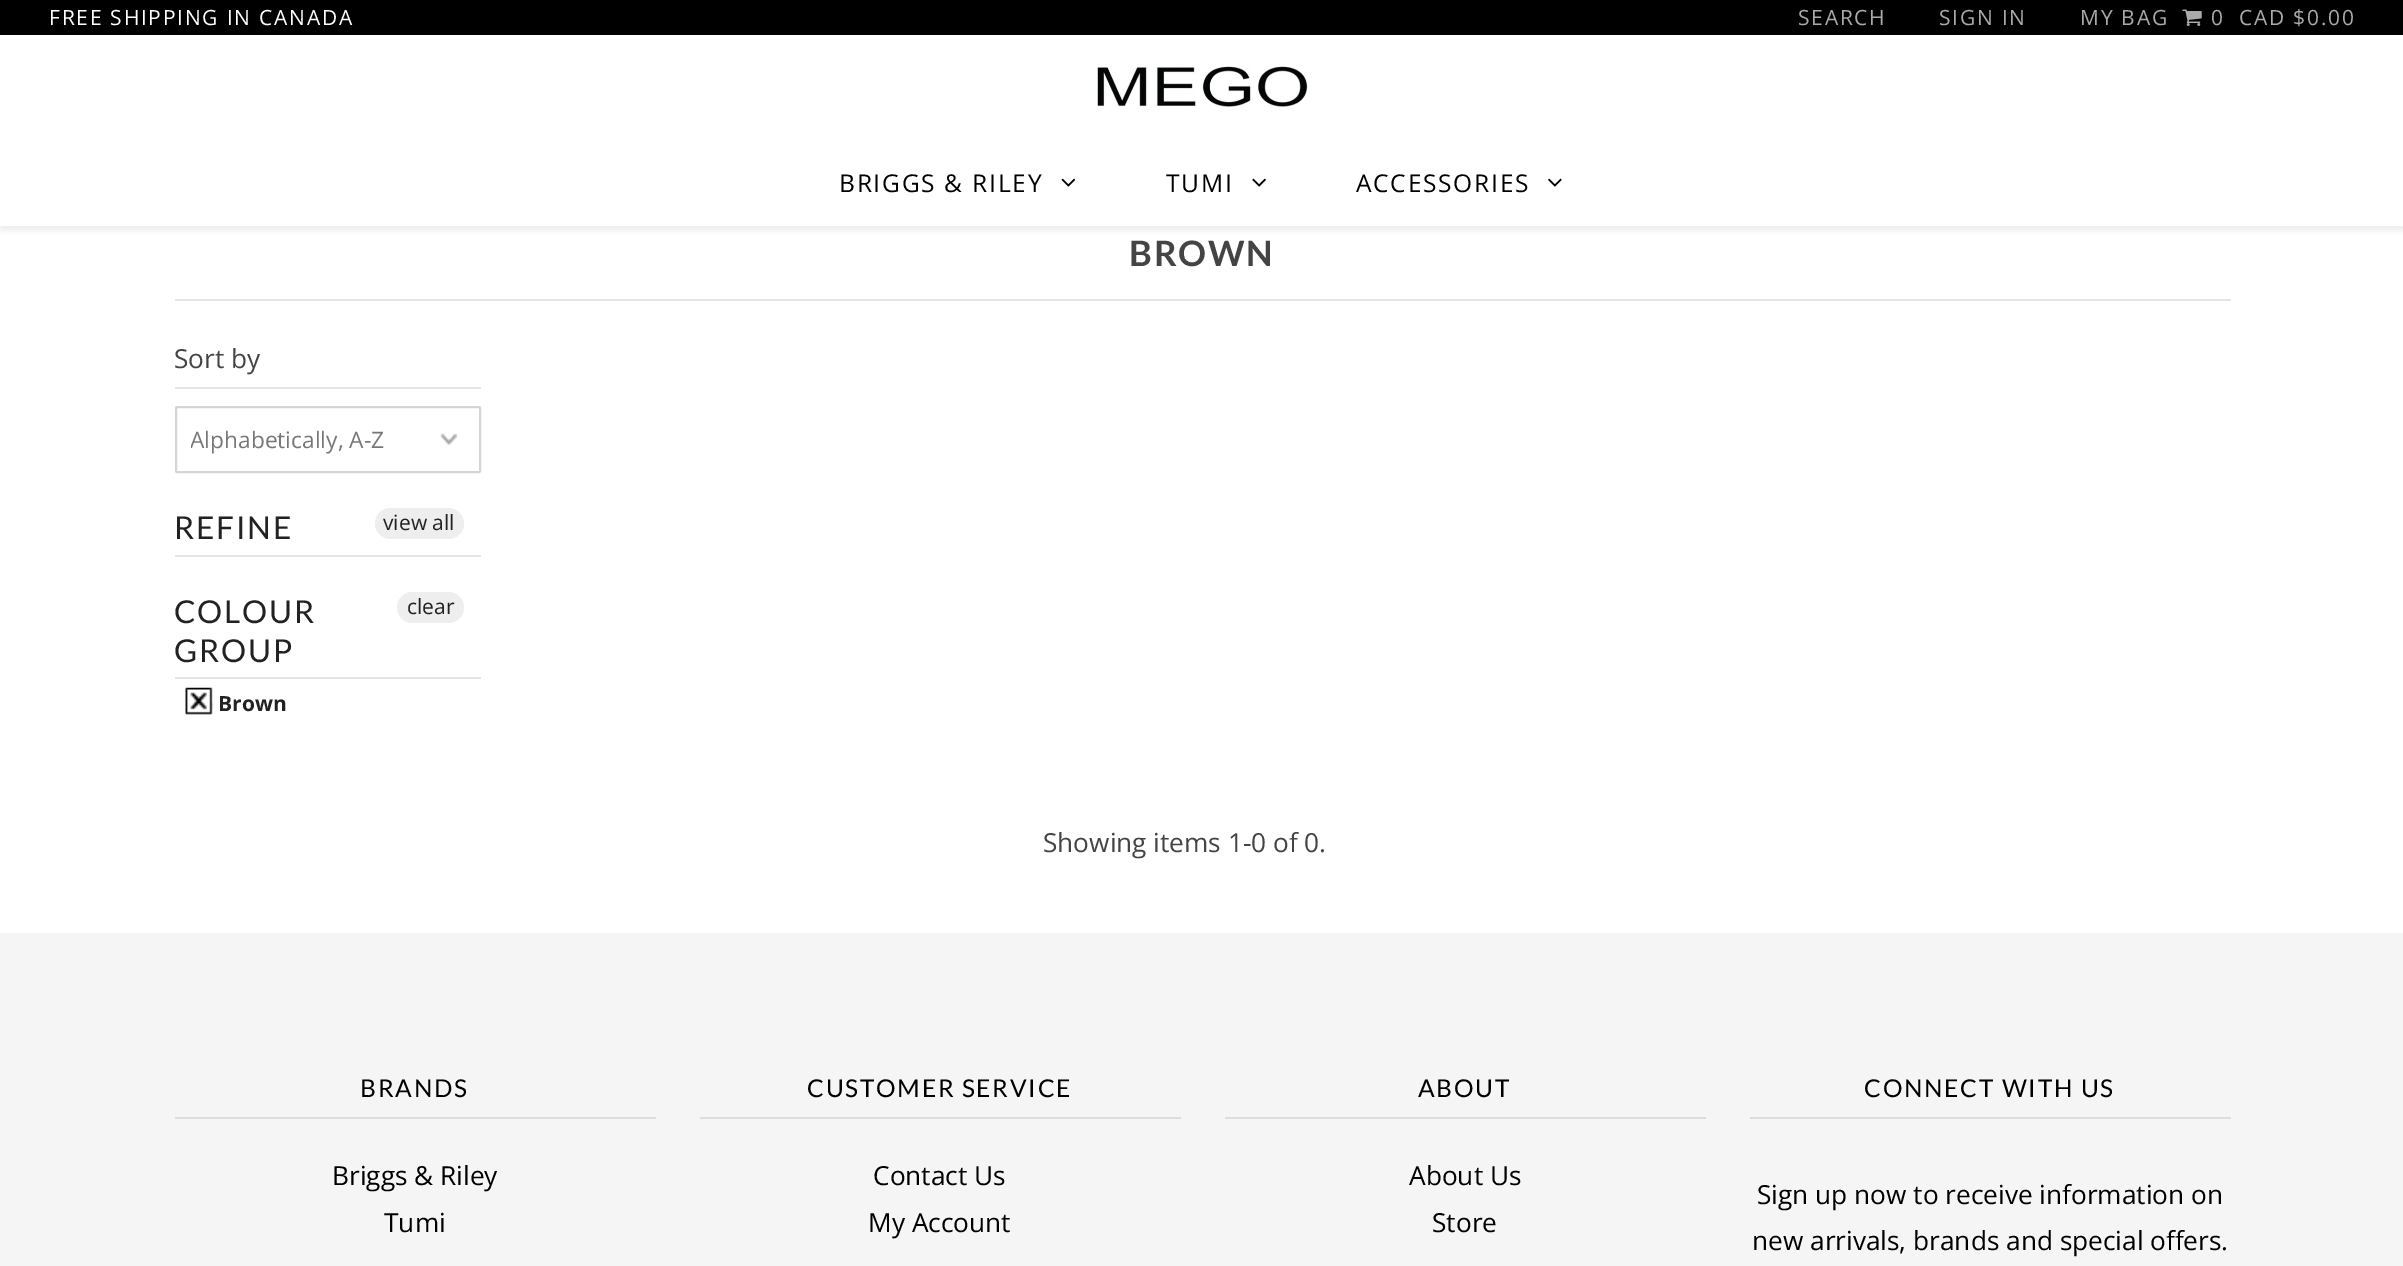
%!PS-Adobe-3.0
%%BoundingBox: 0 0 2403 1266
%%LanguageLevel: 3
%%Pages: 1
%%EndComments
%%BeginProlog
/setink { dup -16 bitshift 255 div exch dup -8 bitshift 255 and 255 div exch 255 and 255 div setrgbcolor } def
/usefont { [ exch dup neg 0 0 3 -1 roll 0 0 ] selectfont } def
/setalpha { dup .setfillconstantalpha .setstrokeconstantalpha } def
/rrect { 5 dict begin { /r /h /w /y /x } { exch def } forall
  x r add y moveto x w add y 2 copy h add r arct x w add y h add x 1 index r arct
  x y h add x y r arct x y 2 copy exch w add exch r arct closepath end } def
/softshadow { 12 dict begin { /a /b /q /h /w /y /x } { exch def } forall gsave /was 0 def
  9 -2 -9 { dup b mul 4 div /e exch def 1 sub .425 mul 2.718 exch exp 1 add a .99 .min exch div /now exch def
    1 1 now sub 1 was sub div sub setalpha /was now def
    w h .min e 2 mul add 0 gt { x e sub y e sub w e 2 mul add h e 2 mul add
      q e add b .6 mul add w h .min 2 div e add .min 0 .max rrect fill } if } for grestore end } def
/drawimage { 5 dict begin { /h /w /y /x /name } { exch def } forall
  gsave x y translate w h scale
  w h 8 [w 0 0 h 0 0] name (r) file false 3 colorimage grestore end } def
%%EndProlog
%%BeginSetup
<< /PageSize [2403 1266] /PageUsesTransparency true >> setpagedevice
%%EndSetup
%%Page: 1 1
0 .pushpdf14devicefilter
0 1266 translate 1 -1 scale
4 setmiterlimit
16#FFFFFF setink
0 0 2403 1266 rectfill
16#EAEAEA setink
0 5 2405 226 0 2.5 0.8 softshadow
16#FFFFFF setink
0 35 2403 191 rectfill
16#000000 setink
0 0 2403 35 rectfill
/OpenSans-Regular 21 usefont
16#FFFFFF setink
49 25 moveto 1.75 0 (FREE SHIPPING IN CANADA) ashow
16#AAAAAA setink
1798 25 moveto 1.75 0 (SEARCH) ashow
1939 25 moveto 1.75 0 (SIGN IN) ashow
2080 25 moveto 1.75 0 (MY BAG) ashow
(img1.raw) 2182 9 20 17 drawimage
2211 25 moveto 1.75 0 (0) ashow
2239 25 moveto 1.75 0 (CAD $0.00) ashow
(img2.raw) 1097 66 211 41 drawimage
/OpenSans-Regular 24.5 usefont
16#000000 setink
839 192 moveto 1.75 0 (BRIGGS & RILEY) ashow
(img3.raw) 1061 178 15 9 drawimage
1166 192 moveto 1.75 0 (TUMI) ashow
(img4.raw) 1252 178 14 9 drawimage
1356 192 moveto 1.75 0 (ACCESSORIES) ashow
(img5.raw) 1548 178 14 9 drawimage
16#E5E5E5 setink
175 299 2056 2 rectfill
/Lato-Bold 35 usefont
16#444444 setink
1129 266 moveto 1.75 0 (BROWN) ashow
16#E5E5E5 setink
175 387 306 2 rectfill
/OpenSans-Regular 26.25 usefont
16#444444 setink
174 368 moveto (Sort by) show
(img6.raw) 440 433 18 12 drawimage
16#D5D5D5 setink
2 setlinewidth
176 407 304 65 1 rrect stroke
gsave
191 408 289 63 rectclip
/OpenSans-Regular 22.75 usefont
16#777777 setink
190 448 moveto (Alphabetically, A-Z) show
grestore
16#E5E5E5 setink
175 555 306 2 rectfill
/Lato-Regular 31.5 usefont
16#222222 setink
174 539 moveto 1.75 0 (REFINE) ashow
16#EEEEEE setink
375 508 89 31 15.5 rrect fill
/OpenSans-Regular 21 usefont
16#222222 setink
383 530 moveto (view all) show
16#E5E5E5 setink
175 677 306 2 rectfill
/Lato-Regular 31.5 usefont
16#222222 setink
174 623 moveto 1.75 0 (COLOUR) ashow
174 662 moveto 1.75 0 (GROUP) ashow
16#EEEEEE setink
397 592 67 31 15.5 rrect fill
/OpenSans-Regular 21 usefont
16#222222 setink
407 614 moveto (clear) show
(img7.raw) 185 687 29 28 drawimage
/OpenSans-Bold 21 usefont
218 711 moveto (Brown) show
/OpenSans-Regular 26.25 usefont
16#444444 setink
1043 852 moveto (Showing items 1-0 of 0.) show
16#F5F5F5 setink
0 933 2403 333 rectfill
16#DDDDDD setink
175 1117 481 2 rectfill
/Lato-Regular 24.5 usefont
16#000000 setink
360 1097 moveto 1.75 0 (BRANDS) ashow
/OpenSans-Regular 26.25 usefont
332 1185 moveto (Briggs & Riley) show
384 1232 moveto (Tumi) show
16#DDDDDD setink
700 1117 481 2 rectfill
/Lato-Regular 24.5 usefont
16#000000 setink
807 1097 moveto 1.75 0 (CUSTOMER SERVICE) ashow
/OpenSans-Regular 26.25 usefont
873 1185 moveto (Contact Us) show
868 1232 moveto (My Account) show
16#DDDDDD setink
1225 1117 481 2 rectfill
/Lato-Regular 24.5 usefont
16#000000 setink
1418 1097 moveto 1.75 0 (ABOUT) ashow
/OpenSans-Regular 26.25 usefont
1409 1185 moveto (About Us) show
1432 1232 moveto (Store) show
16#DDDDDD setink
1750 1117 481 2 rectfill
/Lato-Regular 24.5 usefont
16#000000 setink
1864 1097 moveto 1.75 0 (CONNECT WITH US) ashow
/OpenSans-Regular 26.25 usefont
1757 1204 moveto (Sign up now to receive information on) show
1752 1250 moveto (new arrivals, brands and special offers.) show
.poppdf14devicefilter showpage
%%EOF
